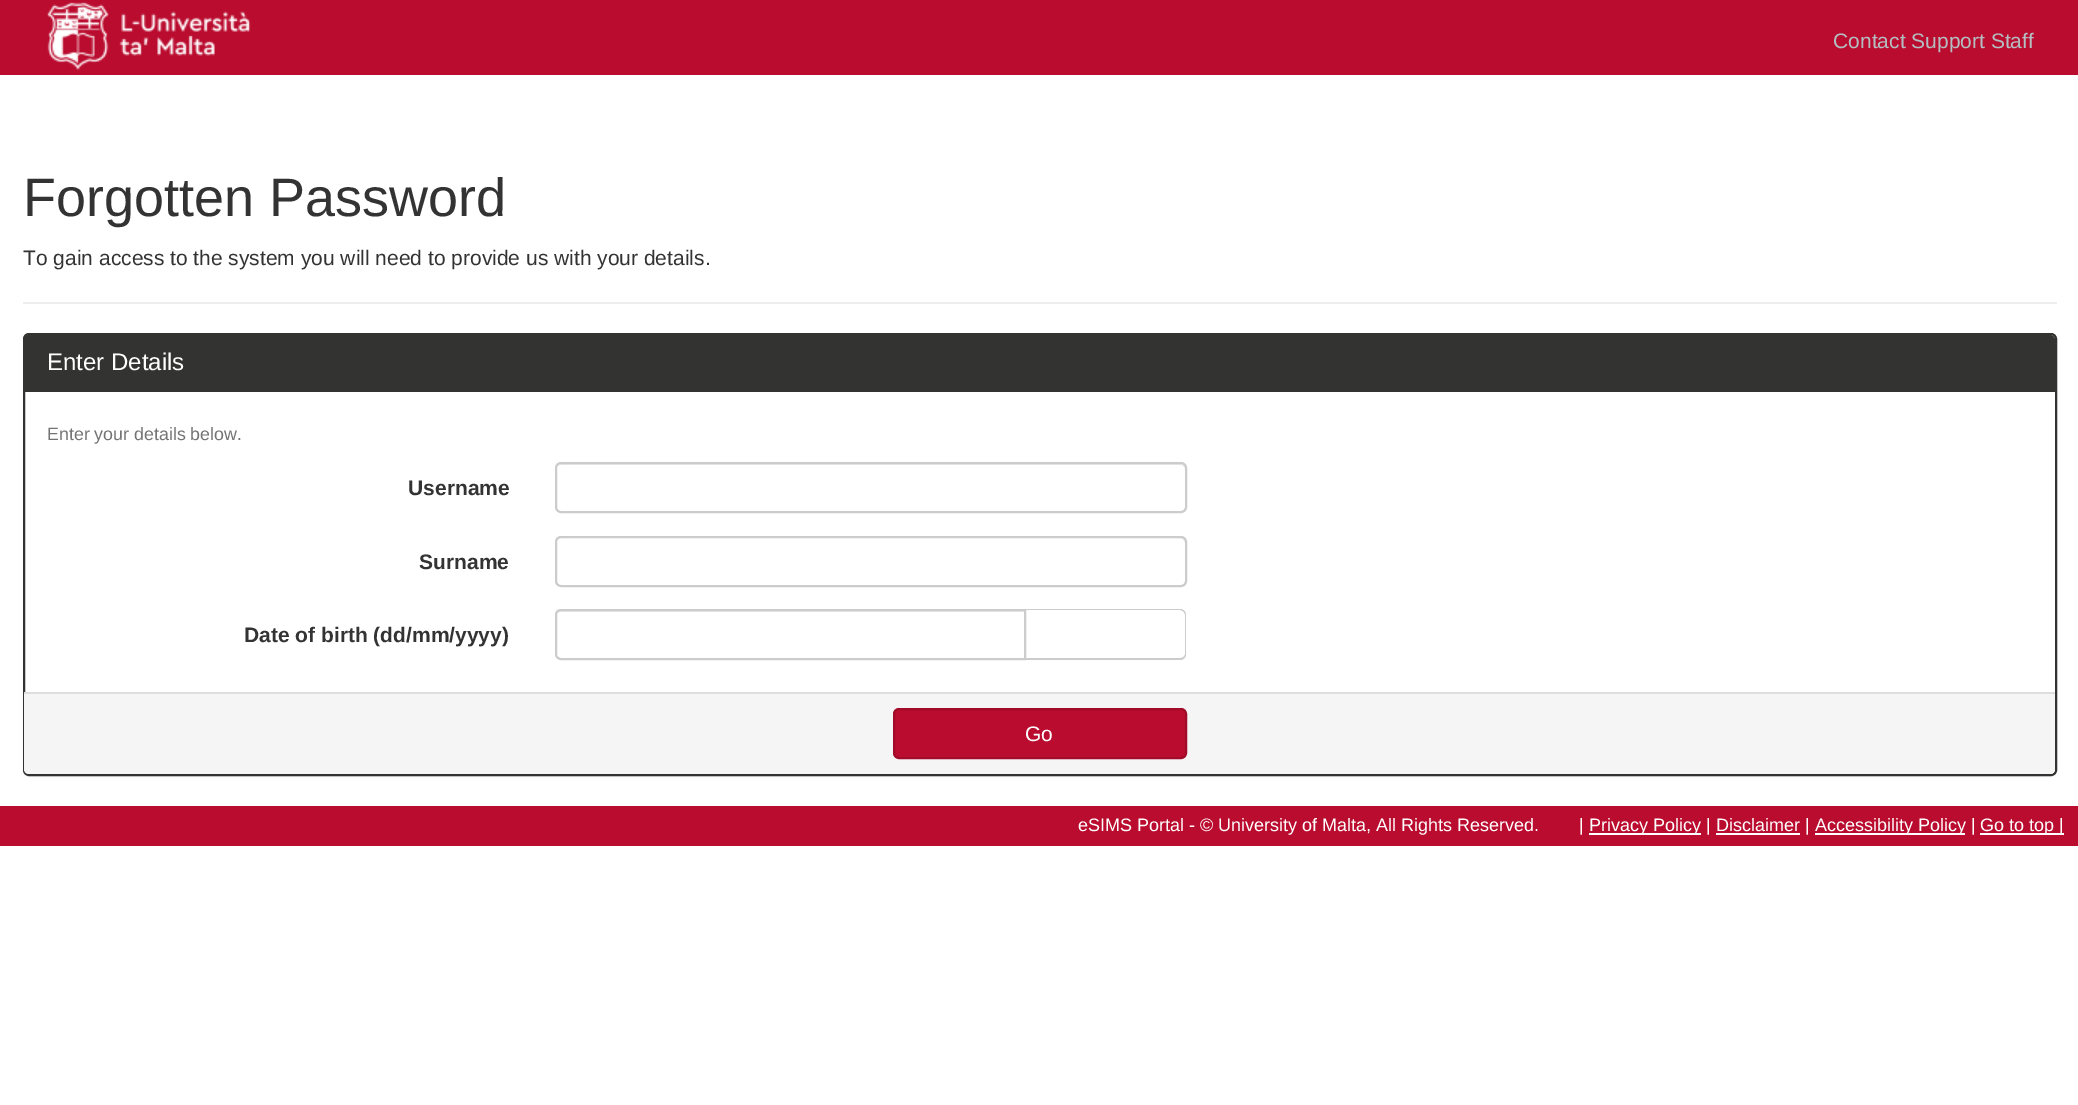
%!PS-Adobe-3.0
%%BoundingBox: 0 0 2078 1105
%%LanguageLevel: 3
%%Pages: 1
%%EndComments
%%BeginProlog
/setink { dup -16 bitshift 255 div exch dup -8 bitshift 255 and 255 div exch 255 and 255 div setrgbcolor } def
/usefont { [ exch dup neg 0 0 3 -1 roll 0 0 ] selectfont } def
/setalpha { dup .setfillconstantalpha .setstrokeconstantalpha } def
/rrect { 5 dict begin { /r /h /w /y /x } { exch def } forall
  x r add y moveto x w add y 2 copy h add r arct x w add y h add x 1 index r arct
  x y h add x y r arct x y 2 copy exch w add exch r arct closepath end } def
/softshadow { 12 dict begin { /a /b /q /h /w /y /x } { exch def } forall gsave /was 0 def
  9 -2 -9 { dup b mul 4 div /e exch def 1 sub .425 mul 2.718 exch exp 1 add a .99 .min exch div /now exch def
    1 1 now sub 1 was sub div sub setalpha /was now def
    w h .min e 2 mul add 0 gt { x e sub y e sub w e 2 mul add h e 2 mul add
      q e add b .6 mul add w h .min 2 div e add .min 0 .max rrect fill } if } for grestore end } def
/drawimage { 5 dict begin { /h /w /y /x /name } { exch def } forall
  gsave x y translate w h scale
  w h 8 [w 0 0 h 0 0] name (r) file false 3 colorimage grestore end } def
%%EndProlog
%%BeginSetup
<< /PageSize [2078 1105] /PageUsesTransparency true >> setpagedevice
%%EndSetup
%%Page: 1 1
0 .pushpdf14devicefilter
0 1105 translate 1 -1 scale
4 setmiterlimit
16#FFFFFF setink
0 0 2078 1105 rectfill
16#BA0C2F setink
0 0 2078 75 rectfill
(img1.raw) 47 2 204 69 drawimage
/LiberationSans-Regular 21 usefont
16#B4BEC2 setink
1833 48 moveto (Contact Support Staff) show
16#EEEEEE setink
23 302 2034 2 rectfill
/LiberationSans-Regular 54 usefont
16#333333 setink
23 216 moveto (Forgotten Password) show
/LiberationSans-Regular 21 usefont
23 265 moveto (To gain access to the system you will need to provide us with your details.) show
16#000000 setink
23 335 2034 442 6 1 0.05 softshadow
16#FFFFFF setink
24 334 2032 441 5 rrect gsave fill grestore
16#333331 setink
2 setlinewidth
stroke
29 335 moveto 2050 335 lineto 2053 335 2055 337 2055 340 curveto 2055 392 lineto 24 392 lineto 24 340 lineto 24 337 26 335 29 335 curveto closepath fill
/LiberationSans-Regular 24 usefont
16#FFFFFF setink
47 370 moveto (Enter Details) show
/LiberationSans-Regular 17.8 usefont
16#737373 setink
47 440 moveto (Enter your details below.) show
/LiberationSans-Bold 21 usefont
16#333333 setink
408 495 moveto (Username) show
16#ECECEC setink
561 465 moveto 1180 465 lineto 1183 465 1185 467 1185 470 curveto 1185 469 lineto 1185 466 1183 464 1180 464 curveto 562 464 lineto 560 464 559 465 558 466 curveto closepath fill
16#CCCCCC setink
556 463 630 49 5 rrect stroke
16#333333 setink
419 569 moveto (Surname) show
16#ECECEC setink
561 538 moveto 1180 538 lineto 1183 538 1185 541 1185 543 curveto 1185 542 lineto 1185 539 1183 537 1180 537 curveto 562 537 lineto 560 537 558 538 557 540 curveto 558 539 560 538 561 538 curveto closepath fill
16#CCCCCC setink
556 537 630 49 5 rrect stroke
16#333333 setink
244 642 moveto (Date of birth \(dd/mm/yyyy\)) show
16#ECECEC setink
561 612 moveto 1024 612 lineto 1024 659 lineto 1025 659 lineto 1025 611 lineto 562 611 lineto 560 611 559 612 558 613 curveto closepath fill
16#CCCCCC setink
561 610 moveto 1025 610 lineto 1025 659 lineto 561 659 lineto 558 659 556 657 556 654 curveto 556 615 lineto 556 612 558 610 561 610 curveto closepath stroke
1026 609 moveto 1180 609 lineto 1184 609 1186 612 1186 615 curveto 1186 654 lineto 1186 657 1184 660 1180 660 curveto 1026 660 lineto closepath 1026 610 moveto 1180 610 lineto 1183 610 1185 613 1185 615 curveto 1185 654 lineto 1185 656 1183 658 1180 658 curveto 1026 658 lineto closepath eofill
16#F5F5F5 setink
24 692 moveto 2055 692 lineto 2055 769 lineto 2055 772 2053 774 2050 774 curveto 29 774 lineto 26 774 24 772 24 769 curveto closepath fill
16#DDDDDD setink
24 692 2031 2 rectfill
16#BA0C2F setink
894 709 292 49 5 rrect gsave fill grestore
16#A20A29 setink
stroke
/LiberationSans-Regular 21 usefont
16#FFFFFF setink
1025 741 moveto (Go) show
16#BA0C2F setink
0 806 2078 40 rectfill
/LiberationSans-Regular 18 usefont
16#FFFFFF setink
1078 831 moveto (eSIMS Portal - © University of Malta, All Rights Reserved.) show
1579 831 moveto (|) show
1589 833 112 2 rectfill
1589 831 moveto (Privacy Policy | Disclaimer |) show
1815 833 150 2 rectfill
1815 831 moveto (Accessibility Policy |) show
1980 833 84 2 rectfill
1980 831 moveto (Go to top |) show
1716 833 84 2 rectfill
.poppdf14devicefilter showpage
%%EOF
